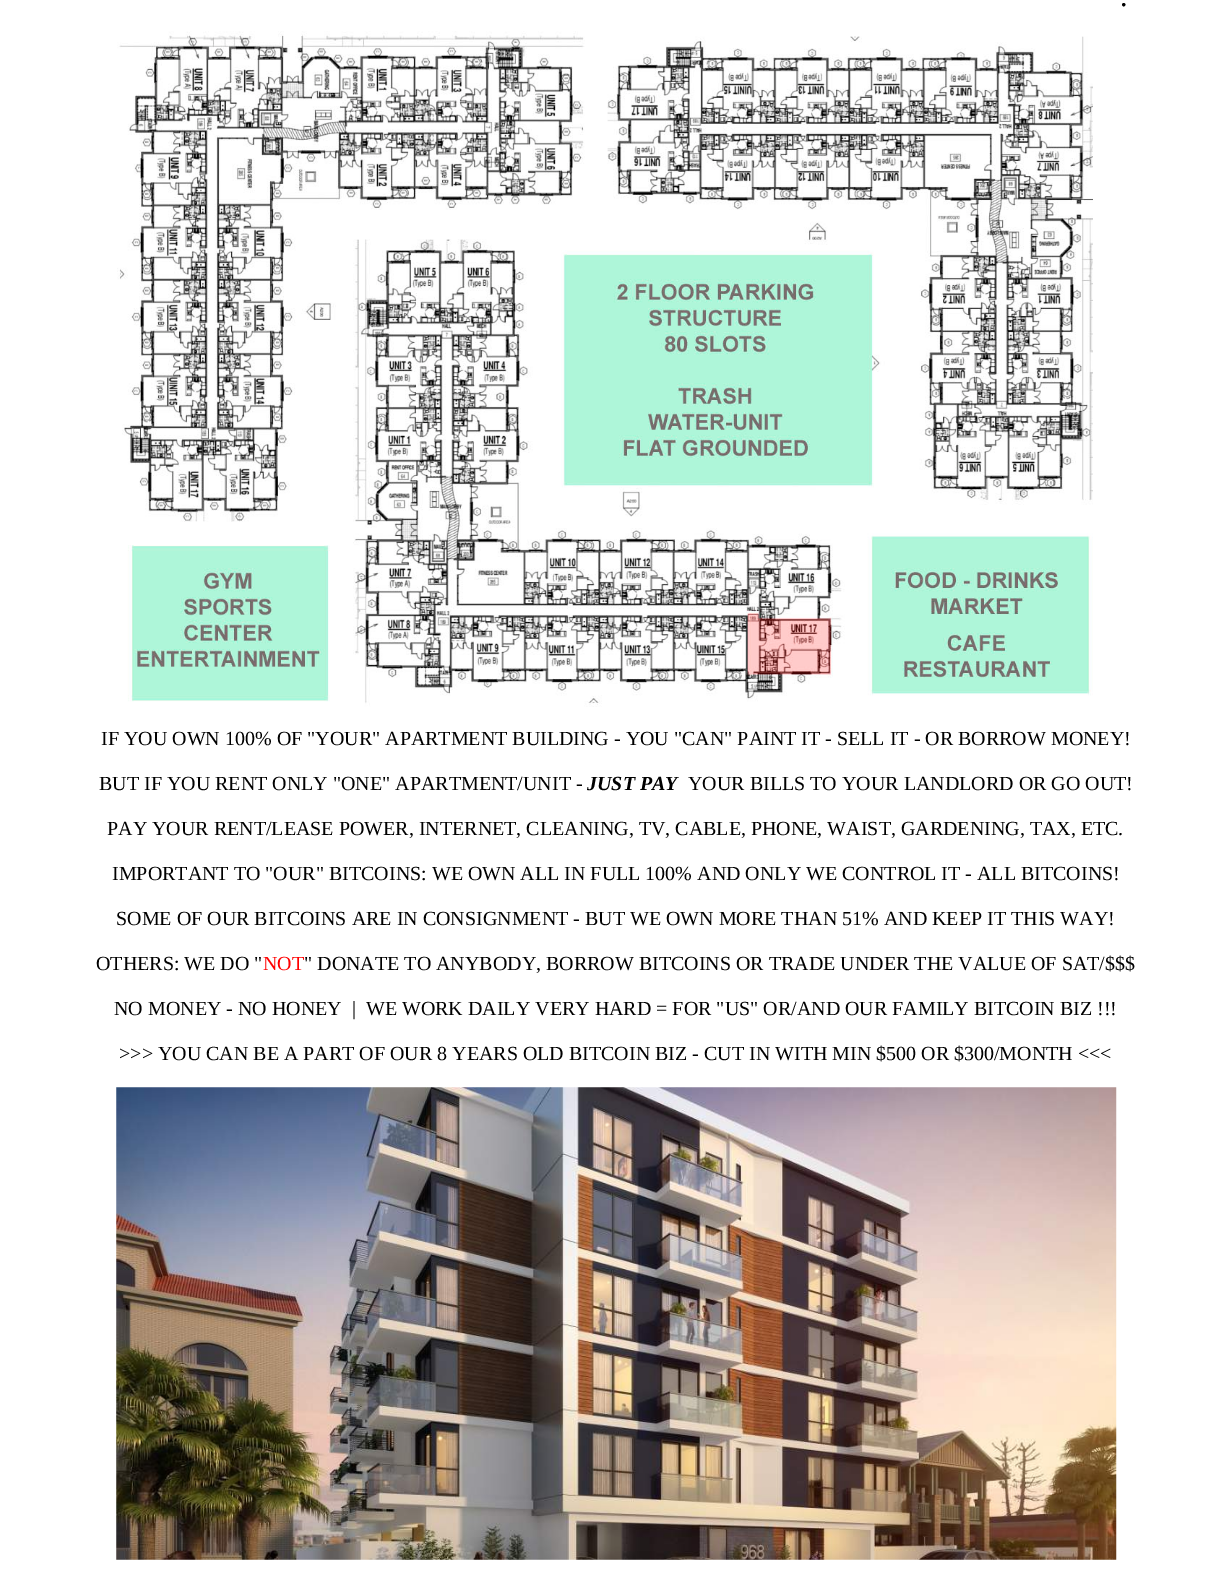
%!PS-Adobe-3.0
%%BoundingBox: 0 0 1231 1583
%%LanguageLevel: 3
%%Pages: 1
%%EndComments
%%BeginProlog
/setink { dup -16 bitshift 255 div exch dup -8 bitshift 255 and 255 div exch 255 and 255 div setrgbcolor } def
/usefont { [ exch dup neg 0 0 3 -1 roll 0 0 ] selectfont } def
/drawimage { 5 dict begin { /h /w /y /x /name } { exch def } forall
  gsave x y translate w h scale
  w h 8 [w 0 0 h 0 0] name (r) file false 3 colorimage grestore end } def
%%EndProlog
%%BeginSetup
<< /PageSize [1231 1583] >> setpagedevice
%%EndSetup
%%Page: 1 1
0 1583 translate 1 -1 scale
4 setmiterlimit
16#FFFFFF setink
0 0 1231 1583 rectfill
/LiberationSerif-Regular 30 usefont
16#000000 setink
1120 6 moveto (.) show
(img1.raw) 117 31 976 676 drawimage
/LiberationSerif-Regular 20 usefont
101 745 moveto (IF YOU OWN 100% OF "YOUR" APARTMENT BUILDING - YOU "CAN" PAINT IT - SELL IT - OR BORROW MONEY!) show
99 790 moveto (BUT IF YOU RENT ONLY "ONE" APARTMENT/UNIT -) show
/LiberationSerif-BoldItalic 20 usefont
587 790 moveto (JUST PAY) show
/LiberationSerif-Regular 20 usefont
[
    [(YOUR BILLS TO YOUR LANDLORD OR GO OUT!) 688 790]
    [(PAY YOUR RENT/LEASE POWER, INTERNET, CLEANING, TV, CABLE, PHONE, WAIST, GARDENING, TAX, ETC.) 107 835]
    [(IMPORTANT TO "OUR" BITCOINS: WE OWN ALL IN FULL 100% AND ONLY WE CONTROL IT - ALL BITCOINS!) 112 880]
    [(SOME OF OUR BITCOINS ARE IN CONSIGNMENT - BUT WE OWN MORE THAN 51% AND KEEP IT THIS WAY!) 116 925]
    [(OTHERS: WE DO ") 96 970]
] { aload pop moveto show } forall
16#FF0000 setink
263 970 moveto (NOT) show
16#000000 setink
[
    [(" DONATE TO ANYBODY, BORROW BITCOINS OR TRADE UNDER THE VALUE OF SAT/$$$) 304 970]
    [(NO MONEY - NO HONEY  |  WE WORK DAILY VERY HARD = FOR "US" OR/AND OUR FAMILY BITCOIN BIZ !!!) 114 1015]
    [(>>> YOU CAN BE A PART OF OUR 8 YEARS OLD BITCOIN BIZ - CUT IN WITH MIN $500 OR $300/MONTH <<<) 119 1060]
] { aload pop moveto show } forall
(img2.raw) 116 1087 1001 473 drawimage
showpage
%%EOF
